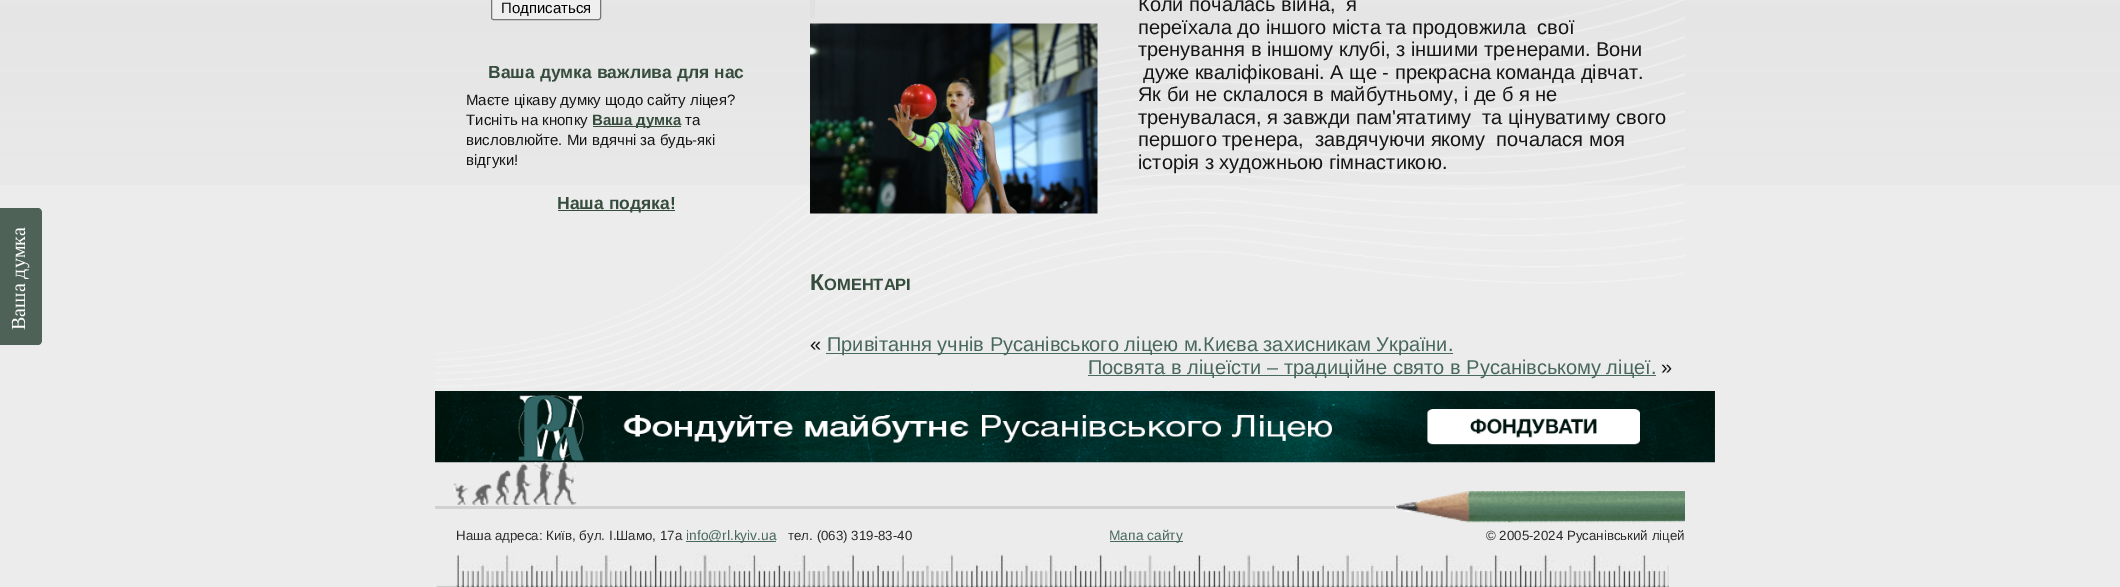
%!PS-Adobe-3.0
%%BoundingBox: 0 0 2120 587
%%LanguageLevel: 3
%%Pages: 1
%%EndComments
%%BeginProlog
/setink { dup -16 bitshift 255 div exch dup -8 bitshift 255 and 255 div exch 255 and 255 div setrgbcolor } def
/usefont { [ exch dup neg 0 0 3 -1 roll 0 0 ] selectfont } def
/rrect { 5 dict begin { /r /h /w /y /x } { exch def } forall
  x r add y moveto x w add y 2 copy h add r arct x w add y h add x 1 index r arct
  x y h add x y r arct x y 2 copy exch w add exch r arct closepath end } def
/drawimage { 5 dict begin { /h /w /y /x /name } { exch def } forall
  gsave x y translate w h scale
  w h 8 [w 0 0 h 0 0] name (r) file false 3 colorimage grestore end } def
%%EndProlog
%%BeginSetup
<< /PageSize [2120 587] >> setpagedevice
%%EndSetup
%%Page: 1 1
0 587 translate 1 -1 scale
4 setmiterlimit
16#ECECEC setink
0 0 2120 587 rectfill
(img1.raw) 0 0 2120 185 drawimage
16#4F6257 setink
-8 340 moveto -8 213 lineto -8 210 -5 208 -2 208 curveto 38 208 lineto 40 208 42 210 42 213 curveto 42 340 lineto 42 343 40 345 38 345 curveto -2 345 lineto -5 345 -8 343 -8 340 curveto closepath fill
/LiberationSerif-Regular 20 usefont
16#FEFEFE setink
gsave 25 330 translate -90 rotate 0 0 moveto (Ваша думка) show grestore
(img2.raw) 435 0 1250 391 drawimage
16#EFEFEF setink
491.5 -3.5 109 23 2 rrect gsave fill grestore
16#767676 setink
stroke
/LiberationSans-Regular 15 usefont
16#000000 setink
501 13 moveto (Подписаться) show
/LiberationSans-Bold 17.5 usefont
16#364D3D setink
488 78 moveto (Ваша думка важлива для нас) show
/LiberationSans-Regular 15 usefont
16#161616 setink
466 105 moveto (Маєте цікаву думку щодо сайту ліцея?) show
466 125 moveto (Тисніть на кнопку) show
16#364D3D setink
593 126 88 1 rectfill
/LiberationSans-Bold 15 usefont
592 125 moveto (Ваша думка) show
/LiberationSans-Regular 15 usefont
16#161616 setink
[
    [(та) 685 125]
    [(висловлюйте. Ми вдячні за будь-які) 466 145]
    [(відгуки!) 466 165]
] { aload pop moveto show } forall
16#364D3D setink
558 210 117 1 rectfill
/LiberationSans-Bold 17.5 usefont
557 209 moveto (Наша подяка!) show
(img3.raw) 810 23 288 191 drawimage
16#E0E0E0 setink
810 0 5 18 rectfill
/LiberationSans-Regular 20 usefont
16#161616 setink
[
    [(Коли почалась війна,  я) 1138 11]
    [(переїхала до іншого міста та продовжила  свої) 1138 34]
    [(тренування в іншому клубі, з іншими тренерами. Вони) 1138 56]
    [(дуже кваліфіковані. А ще - прекрасна команда дівчат.) 1143 79]
    [(Як би не склалося в майбутньому, і де б я не) 1138 101]
    [(тренувалася, я завжди пам'ятатиму  та цінуватиму свого) 1138 124]
    [(першого тренера,  завдячуючи якому  почалася моя) 1138 146]
    [(історія з художньою гімнастикою.) 1138 169]
] { aload pop moveto show } forall
/LiberationSans-Bold 23 usefont
16#364D3D setink
810 290 moveto (К) show
/LiberationSans-Bold 16.5 usefont
824 290 moveto (ОМЕНТАРІ) show
/LiberationSans-Regular 20 usefont
16#161616 setink
810 351 moveto («) show
16#49695E setink
826 353 627 1 rectfill
16#48685D setink
827 351 moveto (Привітання учнів Русанівського ліцею м.Києва захисникам України.) show
16#49695E setink
1088 375 568 1 rectfill
16#48685D setink
1088 374 moveto (Посвята в ліцеїсти – традиційне свято в Русанівському ліцеї.) show
16#161616 setink
1661 374 moveto (») show
(img4.raw) 435 391 1280 72 drawimage
(img5.raw) 453 462 124 44 drawimage
(img6.raw) 1395 491 290 32 drawimage
16#D1D1D1 setink
435 506 960 3 rectfill
/LiberationSans-Regular 13.3 usefont
16#2A2A2A setink
456 540 moveto (Наша адреса: Київ, бул. I.Шамо, 17а) show
16#48685D setink
686 541 90 1 rectfill
/LiberationSans-Regular 13.75 usefont
686 540 moveto (info@rl.kyiv.ua) show
/LiberationSans-Regular 13.3 usefont
16#2A2A2A setink
788 540 moveto (тел. \(063\) 319-83-40) show
16#48685D setink
1110 541 73 1 rectfill
/LiberationSans-Regular 13.75 usefont
1109 540 moveto (Мапа сайту) show
/LiberationSans-Regular 13.3 usefont
16#2A2A2A setink
1486 540 moveto (© 2005-2024 Русанівський ліцей) show
(img7.raw) 435 553 1234 34 drawimage
showpage
%%EOF
